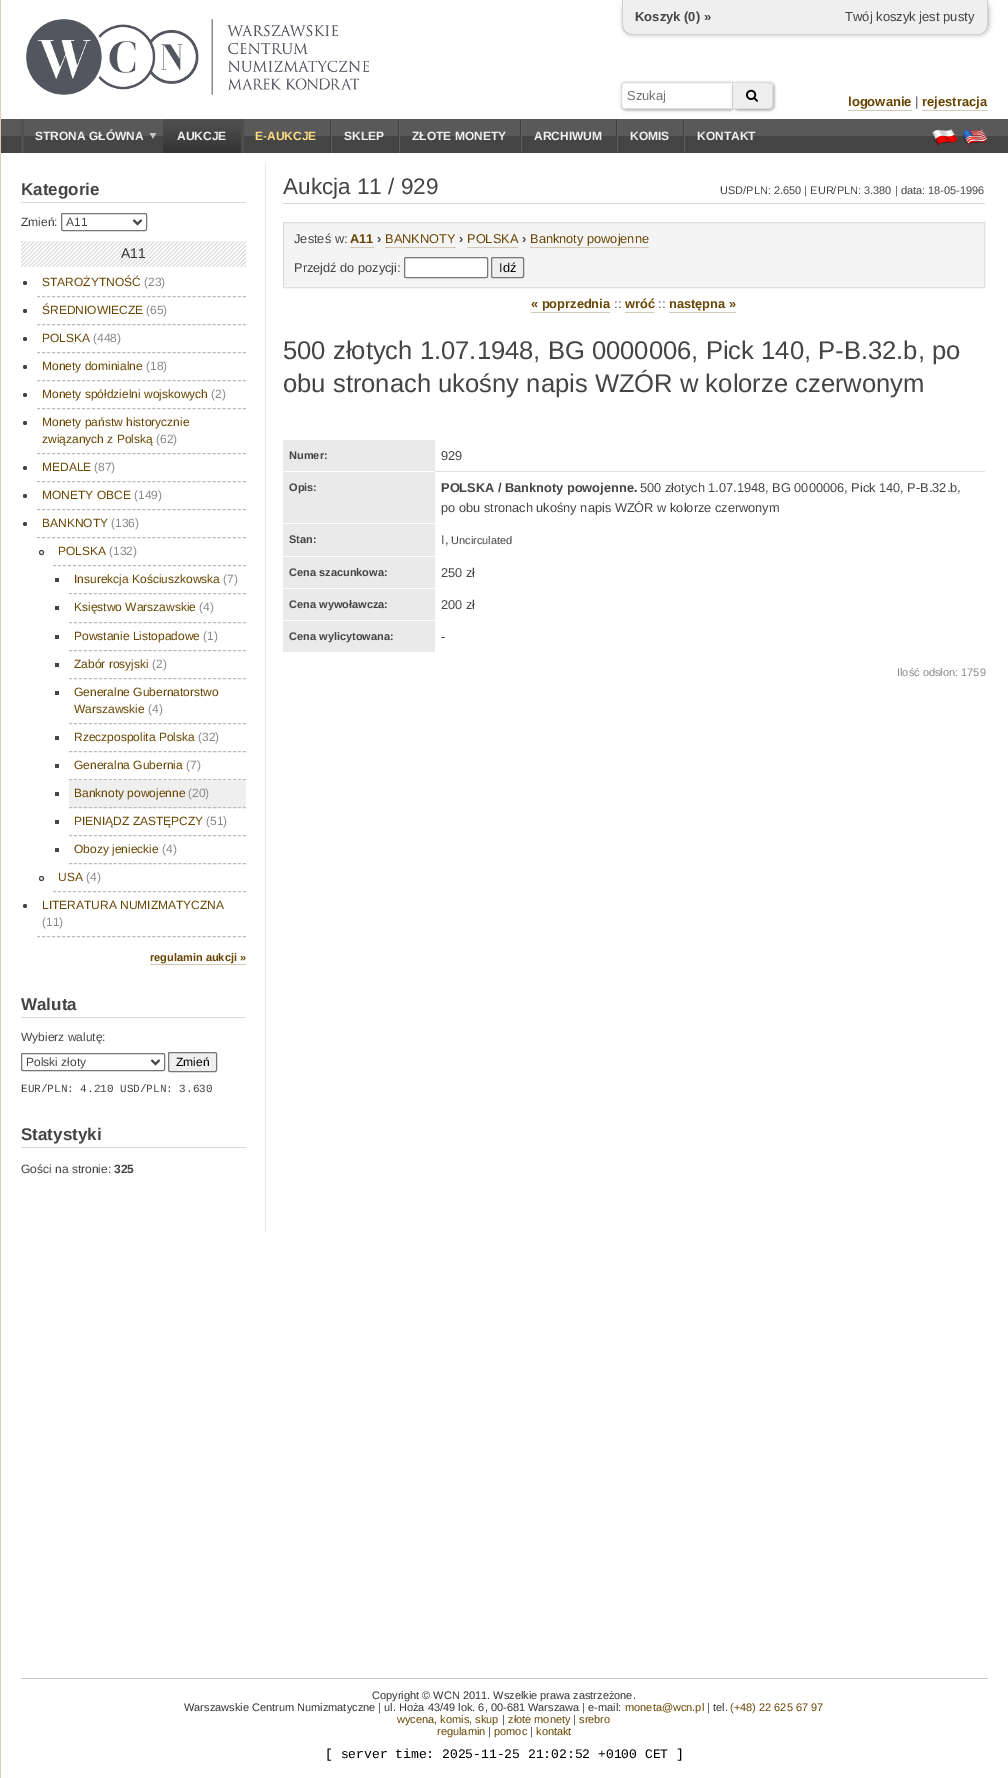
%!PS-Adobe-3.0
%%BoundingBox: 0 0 1008 1778
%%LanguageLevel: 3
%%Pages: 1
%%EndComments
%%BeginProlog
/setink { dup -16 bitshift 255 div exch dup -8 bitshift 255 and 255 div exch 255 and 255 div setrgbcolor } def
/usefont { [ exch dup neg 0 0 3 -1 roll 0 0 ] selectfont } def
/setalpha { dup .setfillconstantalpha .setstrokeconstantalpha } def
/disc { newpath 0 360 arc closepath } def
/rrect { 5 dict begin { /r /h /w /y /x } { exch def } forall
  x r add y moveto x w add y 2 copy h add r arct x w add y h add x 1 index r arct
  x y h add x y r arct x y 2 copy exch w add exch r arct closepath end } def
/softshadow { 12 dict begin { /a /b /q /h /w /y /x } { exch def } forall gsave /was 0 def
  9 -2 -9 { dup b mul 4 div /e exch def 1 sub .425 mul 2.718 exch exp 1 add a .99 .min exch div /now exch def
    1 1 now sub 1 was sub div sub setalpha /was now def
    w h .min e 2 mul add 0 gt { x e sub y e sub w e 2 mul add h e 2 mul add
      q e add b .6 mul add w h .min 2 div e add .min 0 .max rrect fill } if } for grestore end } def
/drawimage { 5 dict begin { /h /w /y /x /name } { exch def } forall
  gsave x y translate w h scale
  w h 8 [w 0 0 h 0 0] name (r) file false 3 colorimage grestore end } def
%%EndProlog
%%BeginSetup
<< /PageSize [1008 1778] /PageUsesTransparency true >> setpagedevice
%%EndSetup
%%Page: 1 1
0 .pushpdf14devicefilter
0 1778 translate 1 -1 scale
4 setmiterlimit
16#EEDDBB setink
0 0 1008 1778 rectfill
16#AAAAAA setink
2 -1 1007 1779 0 3 1 softshadow
16#FFFFFF setink
1 0 1007 1778 rectfill
16#BBBBBB setink
623 -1 366 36 10 2.5 1 softshadow
16#EFEFEF setink
622 -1 moveto 988 -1 lineto 988 25 lineto 988 30.5 983.5 35 978 35 curveto 632 35 lineto 626.5 35 622 30.5 622 25 curveto closepath fill
16#CFCFCF setink
622 -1 moveto 988 -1 lineto 988 25 lineto 988 31 984 35 978 35 curveto 632 35 lineto 626 35 622 31 622 25 curveto closepath 623 -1 moveto 987 -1 lineto 987 25 lineto 987 30 983 34 978 34 curveto 632 34 lineto 627 34 623 30 623 25 curveto closepath eofill
/LiberationSans-Bold 13 usefont
16#444444 setink
635 21 moveto (Koszyk \(0\) ») show
/LiberationSans-Regular 13 usefont
845 21 moveto (Twój koszyk jest pusty) show
(img1.raw) 26 19 343 76 drawimage
16#000000 setink
622 83 112 27 4 1.5 0.4 softshadow
16#FFFFFF setink
625 82.5 moveto 732.5 82.5 lineto 732.5 108.5 lineto 625 108.5 lineto 623 108.5 621.5 107 621.5 105 curveto 621.5 86 lineto 621.5 84 623 82.5 625 82.5 curveto closepath gsave fill grestore
16#DDDDDD setink
stroke
16#757575 setink
627 100 moveto (Szukaj) show
16#000000 setink
734 83 40 27 4 1.5 0.4 softshadow
16#EEEEEE setink
733 82 moveto 769 82 lineto 771 82 773 84 773 86 curveto 773 105 lineto 773 107 771 109 769 109 curveto 733 109 lineto closepath fill
16#DDDDDD setink
733 82 moveto 763 82 lineto 775 82 773 84 773 96 curveto 773 107 775 109 763 109 curveto 733 109 lineto closepath 733 83 moveto 763 83 lineto 775 83 772 84 772 96 curveto 772 107 775 108 763 108 curveto 733 108 lineto closepath eofill
(img2.raw) 746 89 12 13 drawimage
/LiberationSans-Bold 13 usefont
16#674400 setink
848 106 moveto (logowanie) show
16#D1C8B6 setink
848 110 64 1 rectfill
/LiberationSans-Regular 13 usefont
16#444444 setink
915 106 moveto (|) show
/LiberationSans-Bold 13 usefont
16#674400 setink
922 106 moveto (rejestracja) show
16#D1C8B6 setink
922 110 66 1 rectfill
(img3.raw) 1 119 1007 34 drawimage
16#505050 setink
21 119 3 34 rectfill
/LiberationSans-Bold 12 usefont
16#F1F1F1 setink
35 140 moveto (STRONA GŁÓWNA) show
(img4.raw) 149 133 8 6 drawimage
(img5.raw) 163 119 78 34 drawimage
177 140 moveto (AUKCJE) show
16#4E4E4E setink
241 119 3 34 rectfill
16#FFDD83 setink
255 140 moveto (E-AUKCJE) show
(img6.raw) 330 119 2 34 drawimage
16#F1F1F1 setink
344 140 moveto (SKLEP) show
(img6.raw) 398 119 2 34 drawimage
412 140 moveto (ZŁOTE MONETY) show
(img6.raw) 520 119 2 34 drawimage
534 140 moveto (ARCHIWUM) show
(img6.raw) 616 119 2 34 drawimage
630 140 moveto (KOMIS) show
(img6.raw) 683 119 2 34 drawimage
697 140 moveto (KONTAKT) show
(img7.raw) 932 129 26 17 drawimage
(img8.raw) 962 129 26 17 drawimage
16#E8E8E8 setink
265 163 1 1070 rectfill
16#DBDBDB setink
21 202 225 1 rectfill
/LiberationSans-Bold 17 usefont
16#444444 setink
21 195 moveto (Kategorie) show
/LiberationSans-Regular 12 usefont
21 226 moveto (Zmień:) show
16#767676 setink
61.5 213.5 85 17 1.5 rrect stroke
16#444444 setink
2 setlinewidth
133.5 220 moveto 137.5 224 lineto 141.5 220 lineto stroke
66 226 moveto (A11) show
(img9.raw) 21 241 225 26 drawimage
/LiberationSans-Regular 14 usefont
16#333333 setink
121 258 moveto (A11) show
16#444444 setink
25 283 2 disc fill
16#BBBBBB setink
1 setlinewidth
[3 2.02] 0 setdash
37 296.5 moveto 246 296.5 lineto stroke
/LiberationSans-Regular 12 usefont
16#674400 setink
42 286 moveto (STAROŻYTNOŚĆ) show
16#888888 setink
144 286 moveto (\(23\)) show
16#444444 setink
25 311 2 disc fill
16#BBBBBB setink
37 324.5 moveto 246 324.5 lineto stroke
16#674400 setink
42 314 moveto (ŚREDNIOWIECZE) show
16#888888 setink
146 314 moveto (\(65\)) show
16#444444 setink
25 339 2 disc fill
16#BBBBBB setink
37 352.5 moveto 246 352.5 lineto stroke
16#674400 setink
42 342 moveto (POLSKA) show
16#888888 setink
93 342 moveto (\(448\)) show
16#444444 setink
25 367 2 disc fill
16#BBBBBB setink
37 380.5 moveto 246 380.5 lineto stroke
16#674400 setink
42 370 moveto (Monety dominialne) show
16#888888 setink
146 370 moveto (\(18\)) show
16#444444 setink
25 395 2 disc fill
16#BBBBBB setink
37 408.5 moveto 246 408.5 lineto stroke
16#674400 setink
42 398 moveto (Monety spółdzielni wojskowych) show
16#888888 setink
211 398 moveto (\(2\)) show
16#444444 setink
25 423 2 disc fill
16#BBBBBB setink
37 453.5 moveto 246 453.5 lineto stroke
16#674400 setink
42 426 moveto (Monety państw historycznie) show
42 443 moveto (związanych z Polską) show
16#888888 setink
156 443 moveto (\(62\)) show
16#444444 setink
25 468 2 disc fill
16#BBBBBB setink
37 481.5 moveto 246 481.5 lineto stroke
16#674400 setink
42 471 moveto (MEDALE) show
16#888888 setink
94 471 moveto (\(87\)) show
16#444444 setink
25 496 2 disc fill
16#BBBBBB setink
37 509.5 moveto 246 509.5 lineto stroke
16#674400 setink
42 499 moveto (MONETY OBCE) show
16#888888 setink
134 499 moveto (\(149\)) show
16#444444 setink
25 524 2 disc fill
16#BBBBBB setink
37 537.5 moveto 246 537.5 lineto stroke
16#674400 setink
42 527 moveto (BANKNOTY) show
16#888888 setink
111 527 moveto (\(136\)) show
16#444444 setink
[] 0 setdash
41.5 552.5 2 disc stroke
16#BBBBBB setink
[3 2] 0 setdash
53 565.5 moveto 246 565.5 lineto stroke
16#674400 setink
58 555 moveto (POLSKA) show
16#888888 setink
109 555 moveto (\(132\)) show
16#444444 setink
55 578 4 4 rectfill
16#BBBBBB setink
[3 1.97] 0 setdash
69 593.5 moveto 246 593.5 lineto stroke
16#674400 setink
74 583 moveto (Insurekcja Kościuszkowska) show
16#888888 setink
223 583 moveto (\(7\)) show
16#444444 setink
55 606 4 4 rectfill
16#BBBBBB setink
69 622.5 moveto 246 622.5 lineto stroke
16#674400 setink
74 611 moveto (Księstwo Warszawskie) show
16#888888 setink
199 611 moveto (\(4\)) show
16#444444 setink
55 635 4 4 rectfill
16#BBBBBB setink
69 650.5 moveto 246 650.5 lineto stroke
16#674400 setink
74 640 moveto (Powstanie Listopadowe) show
16#888888 setink
203 640 moveto (\(1\)) show
16#444444 setink
55 663 4 4 rectfill
16#BBBBBB setink
69 678.5 moveto 246 678.5 lineto stroke
16#674400 setink
74 668 moveto (Zabór rosyjski) show
16#888888 setink
152 668 moveto (\(2\)) show
16#444444 setink
55 691 4 4 rectfill
16#BBBBBB setink
69 723.5 moveto 246 723.5 lineto stroke
16#674400 setink
74 696 moveto (Generalne Gubernatorstwo) show
74 713 moveto (Warszawskie) show
16#888888 setink
148 713 moveto (\(4\)) show
16#444444 setink
55 736 4 4 rectfill
16#BBBBBB setink
69 751.5 moveto 246 751.5 lineto stroke
16#674400 setink
74 741 moveto (Rzeczpospolita Polska) show
16#888888 setink
198 741 moveto (\(32\)) show
16#444444 setink
55 764 4 4 rectfill
16#BBBBBB setink
69 779.5 moveto 246 779.5 lineto stroke
16#674400 setink
74 769 moveto (Generalna Gubernia) show
16#888888 setink
186 769 moveto (\(7\)) show
16#444444 setink
55 792 4 4 rectfill
16#EFEFEF setink
69 780 177 28 rectfill
16#BBBBBB setink
69 807.5 moveto 246 807.5 lineto stroke
16#674400 setink
74 797 moveto (Banknoty powojenne) show
16#888888 setink
188 797 moveto (\(20\)) show
16#444444 setink
55 820 4 4 rectfill
16#BBBBBB setink
69 835.5 moveto 246 835.5 lineto stroke
16#674400 setink
74 825 moveto (PIENIĄDZ ZASTĘPCZY) show
16#888888 setink
206 825 moveto (\(51\)) show
16#444444 setink
55 848 4 4 rectfill
16#BBBBBB setink
69 863.5 moveto 246 863.5 lineto stroke
16#674400 setink
74 853 moveto (Obozy jenieckie) show
16#888888 setink
162 853 moveto (\(4\)) show
16#444444 setink
[] 0 setdash
41.5 878.5 2 disc stroke
16#BBBBBB setink
[3 2] 0 setdash
53 891.5 moveto 246 891.5 lineto stroke
16#674400 setink
58 881 moveto (USA) show
16#888888 setink
86 881 moveto (\(4\)) show
16#444444 setink
25 906 2 disc fill
16#BBBBBB setink
[3 2.02] 0 setdash
37 936.5 moveto 246 936.5 lineto stroke
16#674400 setink
42 909 moveto (LITERATURA NUMIZMATYCZNA) show
16#888888 setink
42 926 moveto (\(11\)) show
/LiberationSans-Bold 11 usefont
16#674400 setink
150 961 moveto (regulamin aukcji ») show
16#D1C8B6 setink
150 964 96 1 rectfill
16#DBDBDB setink
21 1017 225 1 rectfill
/LiberationSans-Bold 17 usefont
16#444444 setink
21 1010 moveto (Waluta) show
/LiberationSans-Regular 12 usefont
21 1041 moveto (Wybierz walutę:) show
16#767676 setink
[] 0 setdash
21.5 1053.5 143 17 1.5 rrect stroke
16#444444 setink
2 setlinewidth
151.5 1060 moveto 155.5 1064 lineto 159.5 1060 lineto stroke
26 1066 moveto (Polski złoty) show
16#EFEFEF setink
168.5 1052.5 48 19 1.5 rrect gsave fill grestore
16#767676 setink
1 setlinewidth
stroke
16#000000 setink
176 1066 moveto (Zmień) show
/LiberationMono-Regular 11 usefont
16#444444 setink
21 1092 moveto (EUR/PLN: 4.210 USD/PLN: 3.630) show
16#DBDBDB setink
21 1147 225 1 rectfill
/LiberationSans-Bold 17 usefont
16#444444 setink
21 1140 moveto (Statystyki) show
/LiberationSans-Regular 12 usefont
21 1173 moveto (Gości na stronie:) show
/LiberationSans-Bold 12 usefont
114 1173 moveto (325) show
16#DBDBDB setink
283 203 702 1 rectfill
/LiberationSans-Regular 22.5 usefont
16#444444 setink
283 194 moveto (Aukcja 11 / 929) show
/LiberationSans-Regular 11 usefont
720 194 moveto (USD/PLN: 2.650 | EUR/PLN: 3.380 | data: 18-05-1996) show
16#F4F4F4 setink
283.5 222.5 moveto 984.5 222.5 lineto 984.5 287.5 lineto 283.5 287.5 lineto closepath gsave fill grestore
16#DDDDDD setink
stroke
/LiberationSans-Regular 12.8 usefont
16#444444 setink
294 243 moveto (Jesteś w:) show
/LiberationSans-Bold 12.8 usefont
16#674400 setink
350 243 moveto (A11) show
16#D1C8B6 setink
350 247 24 1 rectfill
16#444444 setink
377 243 moveto (›) show
/LiberationSans-Regular 12.8 usefont
16#674400 setink
385 243 moveto (BANKNOTY) show
16#D1C8B6 setink
385 247 71 1 rectfill
/LiberationSans-Bold 12.8 usefont
16#444444 setink
459 243 moveto (›) show
/LiberationSans-Regular 12.8 usefont
16#674400 setink
467 243 moveto (POLSKA) show
16#D1C8B6 setink
467 247 51 1 rectfill
/LiberationSans-Bold 12.8 usefont
16#444444 setink
522 243 moveto (›) show
/LiberationSans-Regular 12.8 usefont
16#674400 setink
530 243 moveto (Banknoty powojenne) show
16#D1C8B6 setink
530 247 119 1 rectfill
16#444444 setink
294 272 moveto (Przejdź do pozycji:) show
16#FFFFFF setink
404.5 257.5 83 20 1.5 rrect gsave fill grestore
16#767676 setink
stroke
16#EFEFEF setink
491.5 257.5 32 20 1.5 rrect gsave fill grestore
16#767676 setink
stroke
16#000000 setink
499 272 moveto (Idź) show
/LiberationSans-Bold 12.8 usefont
16#674400 setink
531 308 moveto (« poprzednia) show
16#D1C8B6 setink
531 312 79 1 rectfill
/LiberationSans-Regular 12.8 usefont
16#444444 setink
614 308 moveto (::) show
/LiberationSans-Bold 12.8 usefont
16#674400 setink
625 308 moveto (wróć) show
16#D1C8B6 setink
625 312 29 1 rectfill
/LiberationSans-Regular 12.8 usefont
16#444444 setink
658 308 moveto (::) show
/LiberationSans-Bold 12.8 usefont
16#674400 setink
669 308 moveto (następna ») show
16#D1C8B6 setink
669 312 67 1 rectfill
/LiberationSans-Regular 25.6 usefont
16#444444 setink
283 359 moveto (500 złotych 1.07.1948, BG 0000006, Pick 140, P-B.32.b, po) show
283 392 moveto (obu stronach ukośny napis WZÓR w kolorze czerwonym) show
[
    [283 440 152 31 16#EAEAEA]
    [434 471 551 1 16#E0E0E0]
    [434 471 1 1 16#FFFFFF]
] { aload pop setink rectfill } forall
/LiberationSans-Bold 11 usefont
16#444444 setink
289 459 moveto (Numer:) show
/LiberationSans-Regular 12.8 usefont
441 460 moveto (929) show
16#EAEAEA setink
283 472 152 51 rectfill
/LiberationSans-Bold 11 usefont
16#444444 setink
289 491 moveto (Opis:) show
/LiberationSans-Bold 12.8 usefont
441 492 moveto (POLSKA / Banknoty powojenne.) show
/LiberationSans-Regular 12.8 usefont
640 492 moveto (500 złotych 1.07.1948, BG 0000006, Pick 140, P-B.32.b,) show
441 512 moveto (po obu stronach ukośny napis WZÓR w kolorze czerwonym) show
16#EAEAEA setink
283 524 152 32 rectfill
/LiberationSans-Bold 11 usefont
16#444444 setink
289 543 moveto (Stan:) show
/LiberationSans-Regular 12.8 usefont
441 544 moveto (I,) show
/LiberationSans-Regular 11 usefont
451 544 moveto (Uncirculated) show
16#EAEAEA setink
283 557 152 31 rectfill
/LiberationSans-Bold 11 usefont
16#444444 setink
289 576 moveto (Cena szacunkowa:) show
/LiberationSans-Regular 12.8 usefont
441 577 moveto (250 zł) show
16#EAEAEA setink
283 589 152 31 rectfill
/LiberationSans-Bold 11 usefont
16#444444 setink
289 608 moveto (Cena wywoławcza:) show
/LiberationSans-Regular 12.8 usefont
441 609 moveto (200 zł) show
16#EAEAEA setink
283 621 152 31 rectfill
/LiberationSans-Bold 11 usefont
16#444444 setink
289 640 moveto (Cena wylicytowana:) show
/LiberationSans-Regular 12.8 usefont
441 641 moveto (-) show
/LiberationSans-Regular 11 usefont
16#888888 setink
897 676 moveto (Ilość odsłon: 1759) show
16#C9C9C9 setink
21 1678 967 1 rectfill
16#333333 setink
372 1699 moveto (Copyright © WCN 2011. Wszelkie prawa zastrzeżone.) show
184 1711 moveto (Warszawskie Centrum Numizmatyczne | ul. Hoża 43/49 lok. 6, 00-681 Warszawa | e-mail:) show
16#674400 setink
625 1711 moveto (moneta@wcn.pl) show
16#333333 setink
707 1711 moveto (| tel.) show
16#674400 setink
730 1711 moveto (\(+48\) 22 625 67 97) show
397 1723 moveto (wycena, komis, skup) show
16#333333 setink
502 1723 moveto (|) show
16#674400 setink
508 1723 moveto (złote monety) show
16#333333 setink
573 1723 moveto (|) show
16#674400 setink
579 1723 moveto (srebro) show
437 1735 moveto (regulamin) show
16#333333 setink
488 1735 moveto (|) show
16#674400 setink
494 1735 moveto (pomoc) show
16#333333 setink
530 1735 moveto (|) show
16#674400 setink
536 1735 moveto (kontakt) show
/LiberationMono-Regular 13 usefont
16#000000 setink
325 1758 moveto ([ server time: 2025-11-25 21:02:52 +0100 CET ]) show
.poppdf14devicefilter showpage
%%EOF
